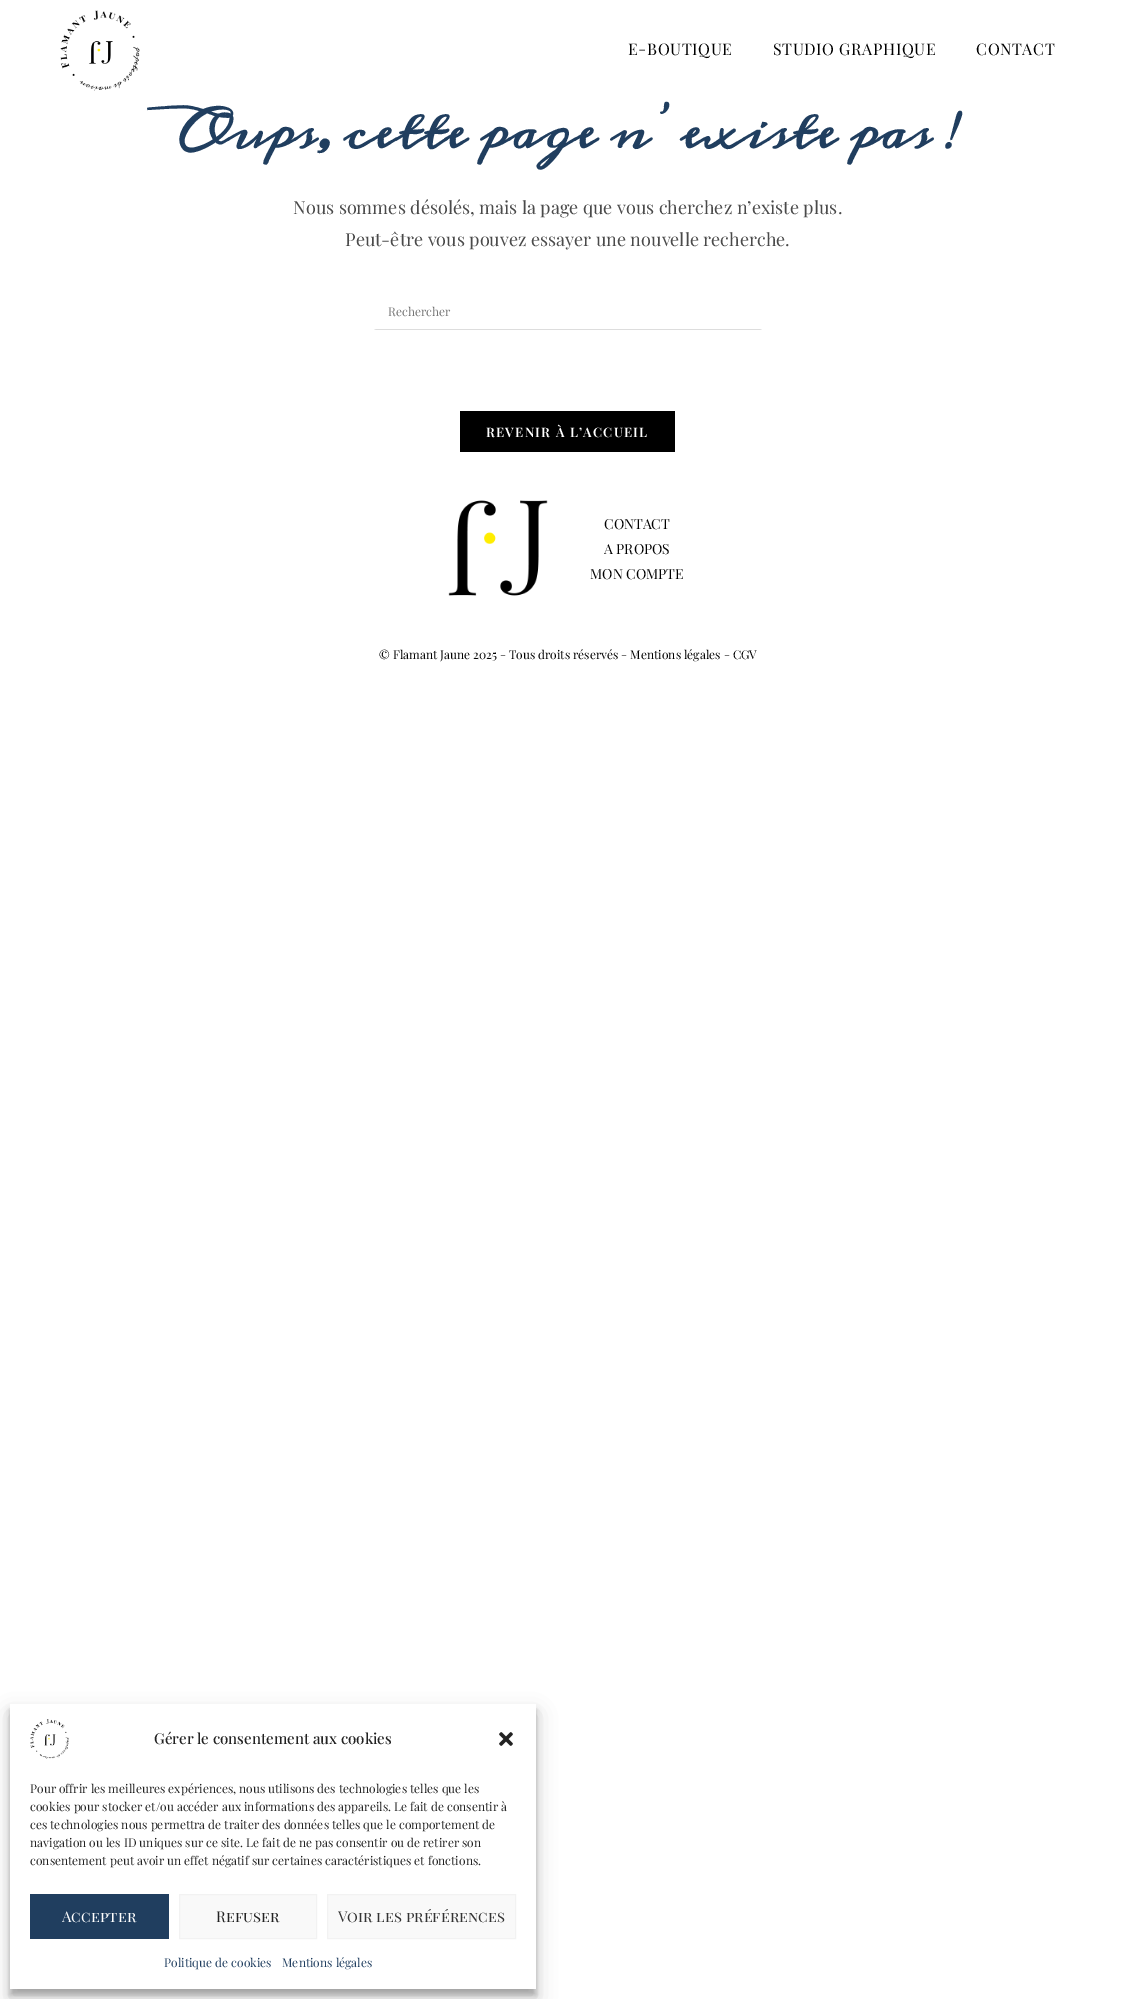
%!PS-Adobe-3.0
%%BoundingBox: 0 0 1135 1999
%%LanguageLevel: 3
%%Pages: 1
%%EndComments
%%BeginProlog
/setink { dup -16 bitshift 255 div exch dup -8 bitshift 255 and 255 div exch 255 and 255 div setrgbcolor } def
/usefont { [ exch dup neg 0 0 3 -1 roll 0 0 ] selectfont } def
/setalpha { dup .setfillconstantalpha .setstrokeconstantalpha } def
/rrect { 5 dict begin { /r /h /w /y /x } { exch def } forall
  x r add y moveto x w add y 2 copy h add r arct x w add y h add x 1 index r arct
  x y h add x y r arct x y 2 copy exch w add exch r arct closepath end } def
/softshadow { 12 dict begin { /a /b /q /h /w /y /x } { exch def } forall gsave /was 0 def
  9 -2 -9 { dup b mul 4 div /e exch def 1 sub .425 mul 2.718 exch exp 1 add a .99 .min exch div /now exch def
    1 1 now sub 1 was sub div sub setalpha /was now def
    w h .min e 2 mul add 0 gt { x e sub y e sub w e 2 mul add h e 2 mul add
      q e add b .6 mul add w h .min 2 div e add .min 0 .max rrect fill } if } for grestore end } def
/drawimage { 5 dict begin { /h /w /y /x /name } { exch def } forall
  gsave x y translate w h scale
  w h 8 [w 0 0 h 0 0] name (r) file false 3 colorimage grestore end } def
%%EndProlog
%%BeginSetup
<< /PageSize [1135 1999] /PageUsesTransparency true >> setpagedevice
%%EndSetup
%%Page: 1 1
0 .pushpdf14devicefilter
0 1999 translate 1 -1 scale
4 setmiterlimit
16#FFFFFF setink
0 0 1135 1999 rectfill
(img1.raw) 60 10 80 81 drawimage
/PlayfairDisplaySC-Regular 16 usefont
16#000000 setink
628 55 moveto 0.6 0 (E-BOUTIQUE) ashow
773 55 moveto 0.6 0 (STUDIO GRAPHIQUE) ashow
976 55 moveto 0.6 0 (CONTACT) ashow
/Meddon-Bold 46 usefont
16#203E5F setink
174 148 moveto (Oups, cette page n’existe pas !) show
/PlayfairDisplay-Regular 18 usefont
16#4A4A4A setink
293 214 moveto (Nous sommes désolés, mais la page que vous cherchez n’existe plus.) show
345 246 moveto (Peut-être vous pouvez essayer une nouvelle recherche.) show
16#DDDDDD setink
376 330 moveto 760 330 lineto 762 330 lineto 760 329 lineto 376 329 lineto 374 330 lineto closepath fill
/PlayfairDisplay-Regular 12 usefont
16#757575 setink
388 316 moveto (Rechercher) show
16#000000 setink
460 411 215 41 rectfill
/PlayfairDisplay-SemiBold 13 usefont
16#FFFFFF setink
486 437 moveto 1.25 0 (REVENIR À L’ACCUEIL) ashow
(img2.raw) 448 500 100 96 drawimage
/PlayfairDisplay-Regular 14 usefont
16#000000 setink
[
    [(CONTACT) 604 529]
    [(A PROPOS) 604 554]
    [(MON COMPTE) 590 579]
] { aload pop moveto show } forall
/PlayfairDisplay-Regular 12 usefont
379 659 moveto (© Flamant Jaune 2025 - Tous droits réservés - Mentions légales - CGV) show
gsave
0 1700 moveto 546 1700 lineto 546 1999 lineto 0 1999 lineto closepath 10 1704 moveto 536 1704 lineto 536 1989 lineto 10 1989 lineto closepath eoclip newpath
10 1710 526 285 0 3 0.23 softshadow
grestore
gsave
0 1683 moveto 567 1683 lineto 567 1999 lineto 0 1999 lineto closepath 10 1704 moveto 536 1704 lineto 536 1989 lineto 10 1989 lineto closepath eoclip newpath
10 1714 526 285 0 10 0.19 softshadow
grestore
(img3.raw) 30 1719 39 40 drawimage
/PlayfairDisplay-Medium 15 usefont
16#222222 setink
154 1744 moveto (Gérer le consentement aux cookies) show
(img4.raw) 499 1732 14 14 drawimage
/PlayfairDisplay-Regular 12 usefont
[
    [(Pour offrir les meilleures expériences, nous utilisons des technologies telles que les) 30 1793]
    [(cookies pour stocker et/ou accéder aux informations des appareils. Le fait de consentir à) 30 1811]
    [(ces technologies nous permettra de traiter des données telles que le comportement de) 30 1829]
    [(navigation ou les ID uniques sur ce site. Le fait de ne pas consentir ou de retirer son) 30 1847]
    [(consentement peut avoir un effet négatif sur certaines caractéristiques et fonctions.) 30 1865]
] { aload pop moveto show } forall
16#203E5F setink
30 1894 139 45 rectfill
/PlayfairDisplaySC-Regular 15 usefont
16#FFFFFF setink
62 1922 moveto (Accepter) show
16#F9F9F9 setink
179.5 1894.5 moveto 316.5 1894.5 lineto 316.5 1938.5 lineto 179.5 1938.5 lineto closepath gsave fill grestore
16#F2F2F2 setink
stroke
16#222222 setink
216 1922 moveto (Refuser) show
16#F9F9F9 setink
327.5 1894.5 moveto 515.5 1894.5 lineto 515.5 1938.5 lineto 327.5 1938.5 lineto closepath gsave fill grestore
16#F2F2F2 setink
stroke
16#333333 setink
338 1922 moveto (Voir les préférences) show
/PlayfairDisplay-Regular 12 usefont
16#203E5F setink
164 1967 moveto (Politique de cookies) show
282 1967 moveto (Mentions légales) show
.poppdf14devicefilter showpage
%%EOF
